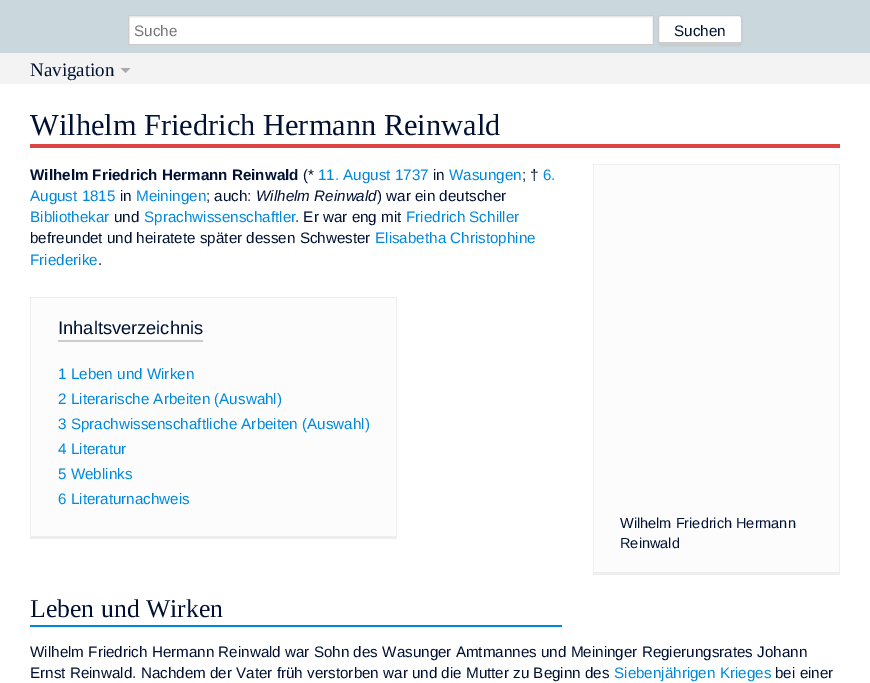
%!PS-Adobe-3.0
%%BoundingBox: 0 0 870 683
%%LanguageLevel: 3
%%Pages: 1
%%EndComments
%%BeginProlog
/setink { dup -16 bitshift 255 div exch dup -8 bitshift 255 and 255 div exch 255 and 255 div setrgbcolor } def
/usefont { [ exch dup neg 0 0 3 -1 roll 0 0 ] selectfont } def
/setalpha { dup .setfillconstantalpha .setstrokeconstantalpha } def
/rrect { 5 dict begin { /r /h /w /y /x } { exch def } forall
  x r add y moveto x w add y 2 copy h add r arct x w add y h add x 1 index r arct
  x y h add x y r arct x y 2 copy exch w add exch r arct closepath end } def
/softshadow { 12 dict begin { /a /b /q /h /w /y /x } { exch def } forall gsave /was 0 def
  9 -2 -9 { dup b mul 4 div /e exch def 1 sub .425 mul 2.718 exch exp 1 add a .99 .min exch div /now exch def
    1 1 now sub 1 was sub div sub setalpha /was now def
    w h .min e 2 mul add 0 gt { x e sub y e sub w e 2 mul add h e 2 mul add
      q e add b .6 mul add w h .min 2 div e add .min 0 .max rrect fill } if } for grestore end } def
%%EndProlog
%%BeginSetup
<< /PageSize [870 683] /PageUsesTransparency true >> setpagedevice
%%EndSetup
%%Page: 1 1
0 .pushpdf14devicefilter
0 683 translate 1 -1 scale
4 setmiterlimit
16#F3F3F3 setink
0 0 870 683 rectfill
16#CAD7DD setink
0 0 870 53 rectfill
16#FFFFFF setink
130 18 522 26 rectfill
gsave
129 16 524 28 rectclip
16#F2F2F2 setink
30 -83 moveto 752 -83 lineto 752 143 lineto 30 143 lineto closepath 130 18 moveto 652 18 lineto 652 44 lineto 130 44 lineto closepath eofill
grestore
16#CCCCCC setink
128.5 15.5 525 29 rectstroke
/LiberationSans-Regular 15.2 usefont
16#757575 setink
134 36 moveto (Suche) show
16#000000 setink
658 16 84 30 3 1 0.05 softshadow
16#FFFFFF setink
661 16 moveto 739 16 lineto 740 16 741 17 741 18 curveto 741 42 lineto 739 42 lineto 659 42 lineto 659 18 lineto 659 17 660 16 661 16 curveto closepath fill
16#CCCCCC setink
658.5 15.5 83 29 2.5 rrect stroke
660 42 80 2 rectfill
16#001133 setink
674 36 moveto (Suchen) show
/LiberationSerif-Regular 19 usefont
30 76 moveto (Navigation) show
16#AAAAAA setink
130.5 68 moveto 125.5 73 lineto 120.5 68 lineto closepath fill
16#FFFFFF setink
0 84 870 599 rectfill
16#DD4444 setink
30 144 810 4 rectfill
/LiberationSerif-Regular 30.4 usefont
16#001133 setink
30 135 moveto (Wilhelm Friedrich Hermann Reinwald) show
/LiberationSans-Bold 15.2 usefont
30 180 moveto (Wilhelm Friedrich Hermann Reinwald) show
/LiberationSans-Regular 15.2 usefont
303 180 moveto (\(*) show
16#0088DD setink
318 180 moveto (11. August 1737) show
16#001133 setink
433 180 moveto (in) show
16#0088DD setink
449 180 moveto (Wasungen) show
16#001133 setink
522 180 moveto (; †) show
16#0088DD setink
543 180 moveto (6.) show
30 201 moveto (August 1815) show
16#001133 setink
120 201 moveto (in) show
16#0088DD setink
136 201 moveto (Meiningen) show
16#001133 setink
206 201 moveto (; auch:) show
/LiberationSans-Italic 15.2 usefont
256 201 moveto (Wilhelm Reinwald) show
/LiberationSans-Regular 15.2 usefont
377 201 moveto (\) war ein deutscher) show
16#0088DD setink
30 222 moveto (Bibliothekar) show
16#001133 setink
114 222 moveto (und) show
16#0088DD setink
144 222 moveto (Sprachwissenschaftler) show
16#001133 setink
295 222 moveto (. Er war eng mit) show
16#0088DD setink
406 222 moveto (Friedrich Schiller) show
16#001133 setink
30 243 moveto (befreundet und heiratete später dessen Schwester) show
16#0088DD setink
375 243 moveto (Elisabetha Christophine) show
30 265 moveto (Friederike) show
16#001133 setink
98 265 moveto (.) show
[
    [31 298 365 238 16#FCFCFC]
    [30 297 367 1 16#EEEEEE]
    [396 297 1 242 16#EEEEEE]
    [30 536 367 3 16#EEEEEE]
    [30 297 1 242 16#EEEEEE]
    [58 340 145 2 16#CCCCCC]
] { aload pop setink rectfill } forall
/LiberationSans-Regular 18.25 usefont
16#001133 setink
58 334 moveto (Inhaltsverzeichnis) show
/LiberationSans-Regular 15.2 usefont
16#0088DD setink
[
    [(1 Leben und Wirken) 58 379]
    [(2 Literarische Arbeiten \(Auswahl\)) 58 404]
    [(3 Sprachwissenschaftliche Arbeiten \(Auswahl\)) 58 429]
    [(4 Literatur) 58 454]
    [(5 Weblinks) 58 479]
    [(6 Literaturnachweis) 58 504]
] { aload pop moveto show } forall
[
    [594 165 245 407 16#FCFCFC]
    [593 164 247 1 16#EEEEEE]
    [839 164 1 411 16#EEEEEE]
    [593 572 247 3 16#EEEEEE]
    [593 164 1 411 16#EEEEEE]
] { aload pop setink rectfill } forall
/LiberationSans-Regular 14.5 usefont
16#001133 setink
620 528 moveto (Wilhelm Friedrich Hermann) show
620 548 moveto (Reinwald) show
16#0088DD setink
30 625 532 2 rectfill
/LiberationSerif-Regular 25.75 usefont
16#001133 setink
30 617 moveto (Leben und Wirken) show
/LiberationSans-Regular 15.2 usefont
30 657 moveto (Wilhelm Friedrich Hermann Reinwald war Sohn des Wasunger Amtmannes und Meininger Regierungsrates Johann) show
30 678 moveto (Ernst Reinwald. Nachdem der Vater früh verstorben war und die Mutter zu Beginn des) show
16#0088DD setink
614 678 moveto (Siebenjährigen Krieges) show
16#001133 setink
775 678 moveto (bei einer) show
.poppdf14devicefilter showpage
%%EOF
